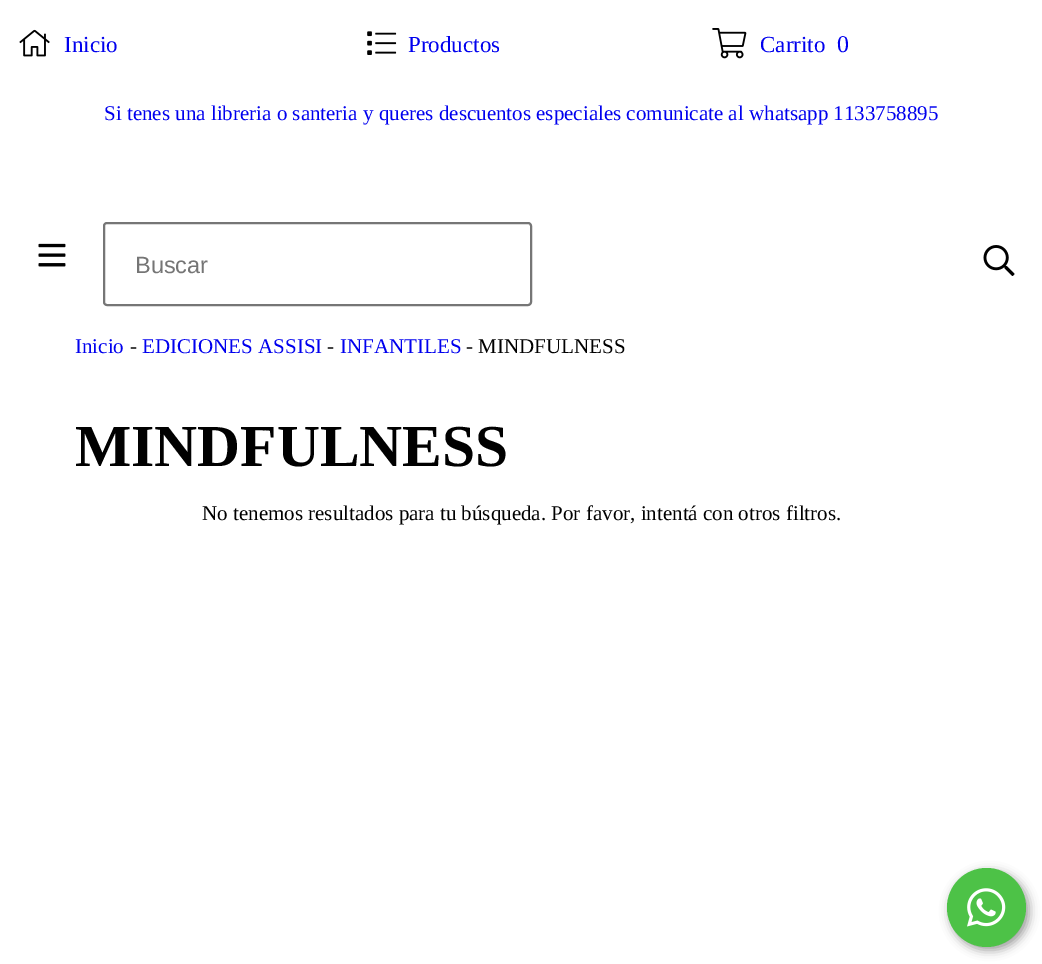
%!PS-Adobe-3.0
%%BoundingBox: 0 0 1042 964
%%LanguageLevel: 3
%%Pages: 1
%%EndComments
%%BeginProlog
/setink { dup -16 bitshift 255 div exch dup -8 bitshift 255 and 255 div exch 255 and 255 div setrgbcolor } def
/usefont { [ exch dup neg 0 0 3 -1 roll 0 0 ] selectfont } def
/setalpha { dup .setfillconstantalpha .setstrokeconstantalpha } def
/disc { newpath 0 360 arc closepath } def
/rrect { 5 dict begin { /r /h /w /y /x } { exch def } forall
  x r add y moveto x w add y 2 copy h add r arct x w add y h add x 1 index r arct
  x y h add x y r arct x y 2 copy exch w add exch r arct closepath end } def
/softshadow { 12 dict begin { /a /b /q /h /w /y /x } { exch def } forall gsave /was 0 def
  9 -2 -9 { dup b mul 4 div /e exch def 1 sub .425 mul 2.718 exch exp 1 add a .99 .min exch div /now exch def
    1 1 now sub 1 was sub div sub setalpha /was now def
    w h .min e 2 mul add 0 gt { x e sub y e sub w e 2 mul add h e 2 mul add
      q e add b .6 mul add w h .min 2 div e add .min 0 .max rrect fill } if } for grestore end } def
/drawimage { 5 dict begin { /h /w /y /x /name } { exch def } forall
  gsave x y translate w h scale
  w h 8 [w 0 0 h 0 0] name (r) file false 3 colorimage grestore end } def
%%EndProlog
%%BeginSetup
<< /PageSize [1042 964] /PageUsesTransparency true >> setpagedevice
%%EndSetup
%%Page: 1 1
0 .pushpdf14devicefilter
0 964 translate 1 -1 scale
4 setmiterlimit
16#FFFFFF setink
0 0 1042 964 rectfill
(img1.raw) 19 29 31 28 drawimage
/LiberationSerif-Regular 23 usefont
16#0000EE setink
64 52 moveto (Inicio) show
(img2.raw) 367 31 30 24 drawimage
408 52 moveto (Productos) show
(img3.raw) 712 28 35 31 drawimage
760 52 moveto (Carrito) show
/LiberationSerif-Regular 24 usefont
837 52 moveto (0) show
/LiberationSerif-Regular 21 usefont
104 120 moveto (Si tenes una libreria o santeria y queres descuentos especiales comunicate al whatsapp 1133758895) show
(img4.raw) 38 243 28 24 drawimage
16#767676 setink
2 setlinewidth
104 223 427 82 3 rrect stroke
/LiberationSans-Regular 23.5 usefont
16#757575 setink
135 273 moveto (Buscar) show
(img5.raw) 983 245 32 31 drawimage
/LiberationSerif-Regular 21 usefont
16#0000EE setink
75 353 moveto (Inicio) show
16#000000 setink
130 353 moveto (-) show
16#0000EE setink
142 353 moveto (EDICIONES ASSISI) show
16#000000 setink
327 353 moveto (-) show
16#0000EE setink
340 353 moveto (INFANTILES) show
16#000000 setink
466 353 moveto (- MINDFULNESS) show
/LiberationSerif-Bold 59.5 usefont
75 466 moveto (MINDFULNESS) show
/LiberationSerif-Regular 21 usefont
202 520 moveto (No tenemos resultados para tu búsqueda. Por favor, intentá con otros filtros.) show
950 872 79 78 39 5 0.4 softshadow
16#4DC247 setink
986.5 907.5 39.5 disc fill
(img6.raw) 967 888 39 39 drawimage
.poppdf14devicefilter showpage
%%EOF
